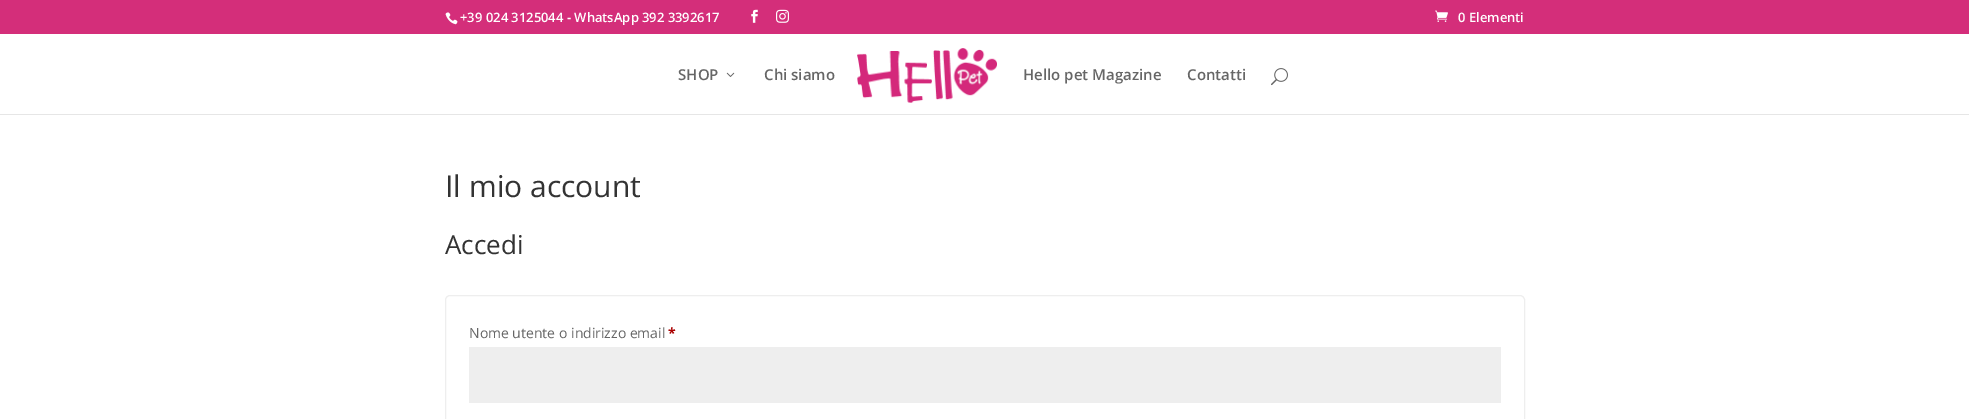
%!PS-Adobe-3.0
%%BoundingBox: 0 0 1969 419
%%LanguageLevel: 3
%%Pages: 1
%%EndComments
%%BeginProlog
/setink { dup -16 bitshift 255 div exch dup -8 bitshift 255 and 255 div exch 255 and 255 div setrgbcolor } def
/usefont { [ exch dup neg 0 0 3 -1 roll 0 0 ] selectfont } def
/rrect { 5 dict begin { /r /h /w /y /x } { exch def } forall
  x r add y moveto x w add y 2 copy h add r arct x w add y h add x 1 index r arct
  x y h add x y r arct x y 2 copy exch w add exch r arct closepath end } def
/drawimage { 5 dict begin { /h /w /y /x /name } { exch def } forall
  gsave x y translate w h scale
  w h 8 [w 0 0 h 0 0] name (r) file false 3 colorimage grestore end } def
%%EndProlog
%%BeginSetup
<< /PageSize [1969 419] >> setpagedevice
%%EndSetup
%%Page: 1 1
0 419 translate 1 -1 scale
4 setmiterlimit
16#D42E7A setink
0 0 1969 419 rectfill
(img1.raw) 445 12 13 13 drawimage
/OpenSans-SemiBold 13 usefont
16#FFFFFF setink
460 22 moveto (+39 024 3125044 - WhatsApp 392 3392617) show
(img2.raw) 751 9 7 14 drawimage
(img3.raw) 776 9 13 14 drawimage
(img4.raw) 1435 10 13 12 drawimage
1458 22 moveto (0 Elementi) show
16#E6E6E6 setink
0 114 1969 1 rectfill
16#FFFFFF setink
0 34 1969 80 rectfill
/OpenSans-SemiBold 15 usefont
16#666666 setink
678 80 moveto (SHOP) show
(img5.raw) 726 72 9 5 drawimage
764 80 moveto (Chi siamo) show
(img6.raw) 857 48 140 55 drawimage
1023 80 moveto (Hello pet Magazine) show
1187 80 moveto (Contatti) show
(img7.raw) 1271 68 17 18 drawimage
16#FFFFFF setink
0 115 1969 304 rectfill
/OpenSans-Regular 30 usefont
16#333333 setink
445 197 moveto (Il mio account) show
/OpenSans-Regular 26 usefont
445 254 moveto (Accedi) show
16#EEEEEE setink
445.5 295.5 1079 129 4.5 rrect stroke
/OpenSans-Regular 14 usefont
16#666666 setink
469 338 moveto (Nome utente o indirizzo email) show
/OpenSans-Bold 14 usefont
16#AA0000 setink
668 338 moveto (*) show
16#EEEEEE setink
469 347 1032 56 rectfill
showpage
%%EOF
